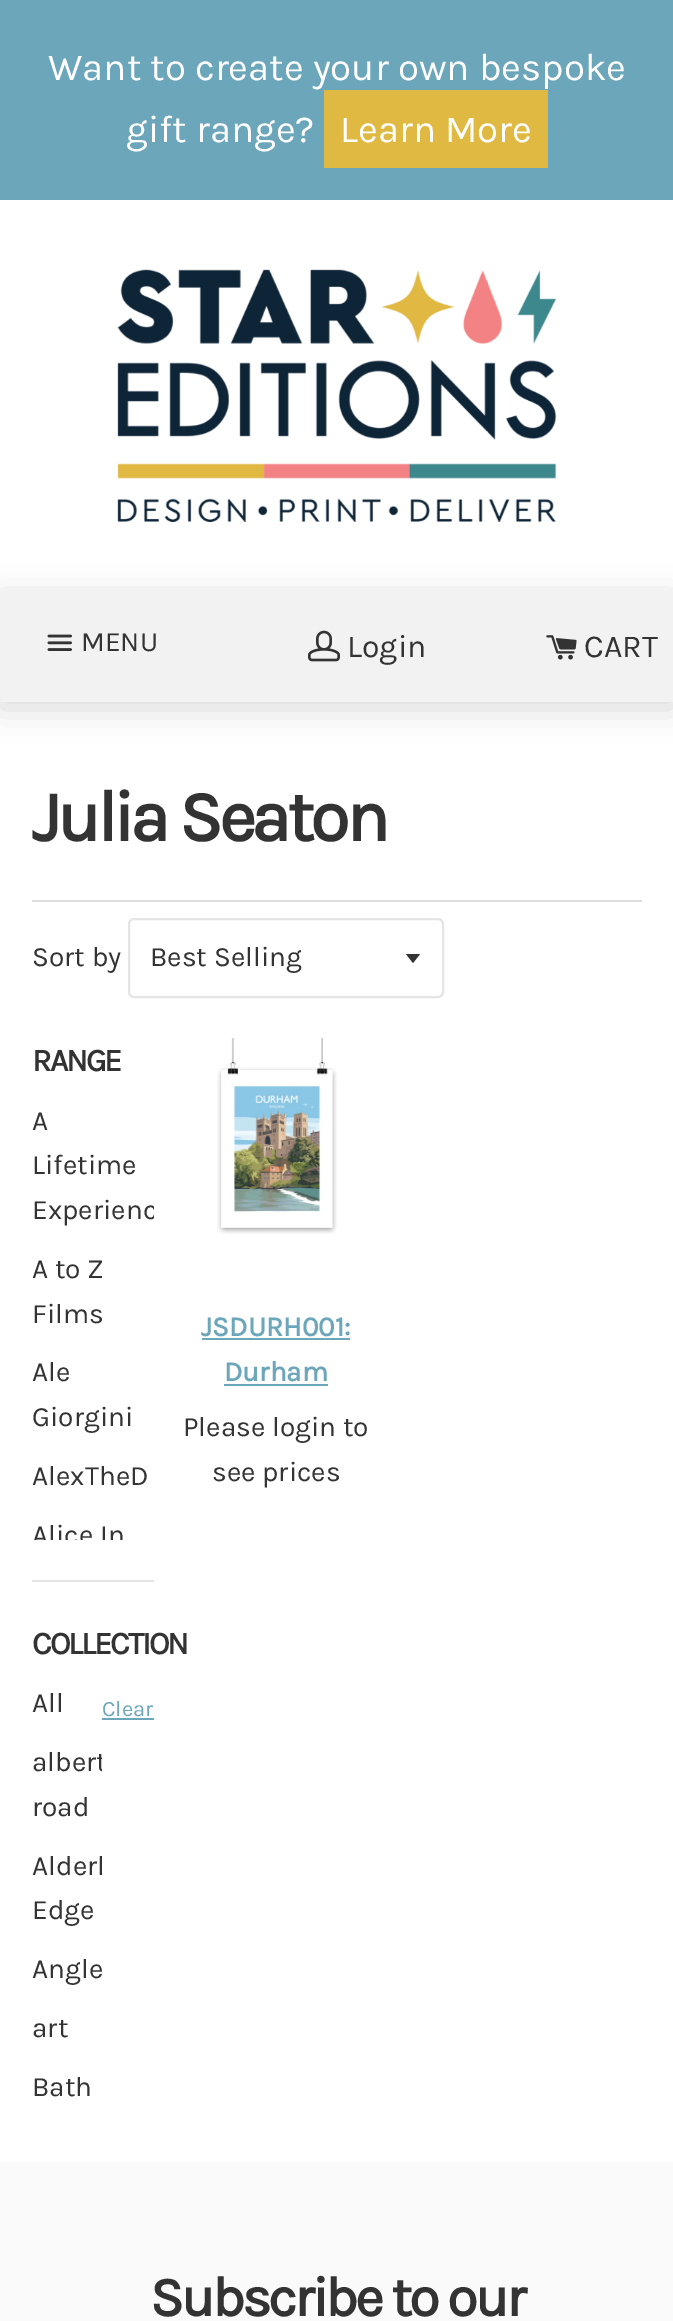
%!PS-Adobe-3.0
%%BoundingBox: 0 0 673 2321
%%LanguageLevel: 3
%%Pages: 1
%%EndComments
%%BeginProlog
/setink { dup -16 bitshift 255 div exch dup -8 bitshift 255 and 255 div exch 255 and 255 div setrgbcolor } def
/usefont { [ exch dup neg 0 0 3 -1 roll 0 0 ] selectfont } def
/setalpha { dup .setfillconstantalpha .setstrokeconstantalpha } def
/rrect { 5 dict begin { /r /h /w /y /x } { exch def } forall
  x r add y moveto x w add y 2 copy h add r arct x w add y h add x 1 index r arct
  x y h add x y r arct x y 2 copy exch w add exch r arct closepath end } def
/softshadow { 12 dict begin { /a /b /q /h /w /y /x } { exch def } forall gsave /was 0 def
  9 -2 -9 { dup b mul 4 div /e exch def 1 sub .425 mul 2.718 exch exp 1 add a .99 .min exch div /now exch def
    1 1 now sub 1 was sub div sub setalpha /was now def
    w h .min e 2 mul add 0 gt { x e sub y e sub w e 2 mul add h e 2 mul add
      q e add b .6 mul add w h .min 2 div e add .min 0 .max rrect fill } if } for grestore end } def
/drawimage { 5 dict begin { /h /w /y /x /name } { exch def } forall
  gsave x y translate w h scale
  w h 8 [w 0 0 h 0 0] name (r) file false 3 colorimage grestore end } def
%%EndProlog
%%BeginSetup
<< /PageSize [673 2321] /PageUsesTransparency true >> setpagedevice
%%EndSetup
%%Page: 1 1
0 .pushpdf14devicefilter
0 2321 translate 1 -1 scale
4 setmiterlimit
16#FFFFFF setink
0 0 673 2321 rectfill
16#6CA6BB setink
0 0 673 200 rectfill
/Karla-Regular 38.4 usefont
16#FFFFFF setink
48 80 moveto (Want to create your own bespoke) show
126 142 moveto (gift range?) show
16#E0B942 setink
324 90 224 78 rectfill
16#FFFFFF setink
340 142 moveto (Learn More) show
(img1.raw) 117 269 440 253 drawimage
16#000000 setink
0 598 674 110 0 16 0.15 softshadow
16#F2F2F2 setink
0 592 673 110 rectfill
(img2.raw) 47 634 25 17 drawimage
/Karla-Regular 28 usefont
16#333333 setink
81 651 moveto (MENU) show
(img3.raw) 308 630 32 32 drawimage
/Karla-Regular 32 usefont
347 657 moveto (Login) show
(img4.raw) 546 635 31 25 drawimage
584 657 moveto (CART) show
/Karla-Bold 72 usefont
32 841 moveto -4 0 (Julia Seaton) ashow
16#DDDDDD setink
32 900 610 2 rectfill
/Karla-Regular 28 usefont
16#333333 setink
32 966 moveto (Sort by) show
406 954 moveto 413 963 lineto 420 954 lineto closepath fill
16#E5E5E5 setink
2 setlinewidth
129 919 314 78 5 rrect stroke
16#333333 setink
150 966 moveto (Best Selling) show
16#E3E3E3 setink
32 1580 122 2 rectfill
/Karla-Bold 32 usefont
16#333333 setink
32 1071 moveto -2 0 (RANGE) ashow
/Karla-Regular 28 usefont
32 1130 moveto (A) show
32 1174 moveto (Lifetime) show
gsave
32 1100 122 440 rectclip
32 1219 moveto (Experienc) show
grestore
[
    [(A to Z) 32 1278]
    [(Films) 32 1323]
    [(Ale) 32 1381]
    [(Giorgini) 32 1426]
    [(AlexTheD) 32 1485]
] { aload pop moveto show } forall
gsave
32 1100 122 440 rectclip
32 1544 moveto (Alice In) show
grestore
/Karla-Bold 32 usefont
32 1654 moveto -2 0 (COLLECTION) ashow
/Karla-Regular 22 usefont
16#6CA6BB setink
102 1716 moveto (Clear) show
102 1718 52 2 rectfill
/Karla-Regular 28 usefont
16#333333 setink
32 1712 moveto (All) show
gsave
32 1682 70 440 rectclip
32 1771 moveto (albert) show
grestore
[
    [(road) 32 1816]
    [(Alderl) 32 1875]
    [(Edge) 32 1919]
    [(Angle) 32 1978]
    [(art) 32 2037]
    [(Bath) 32 2096]
] { aload pop moveto show } forall
(img5.raw) 217 1038 120 196 drawimage
/Karla-Bold 28 usefont
16#6CA6BB setink
201 1336 moveto (JSDURH001:) show
202 1338 148 2 rectfill
224 1381 moveto (Durham) show
224 1384 104 2 rectfill
/Karla-Regular 28 usefont
16#333333 setink
183 1436 moveto (Please login to) show
212 1481 moveto (see prices) show
16#FAFAFA setink
0 2162 673 159 rectfill
/Karla-Bold 56 usefont
16#333333 setink
150 2316 moveto -3 0 (Subscribe to our) ashow
.poppdf14devicefilter showpage
%%EOF
